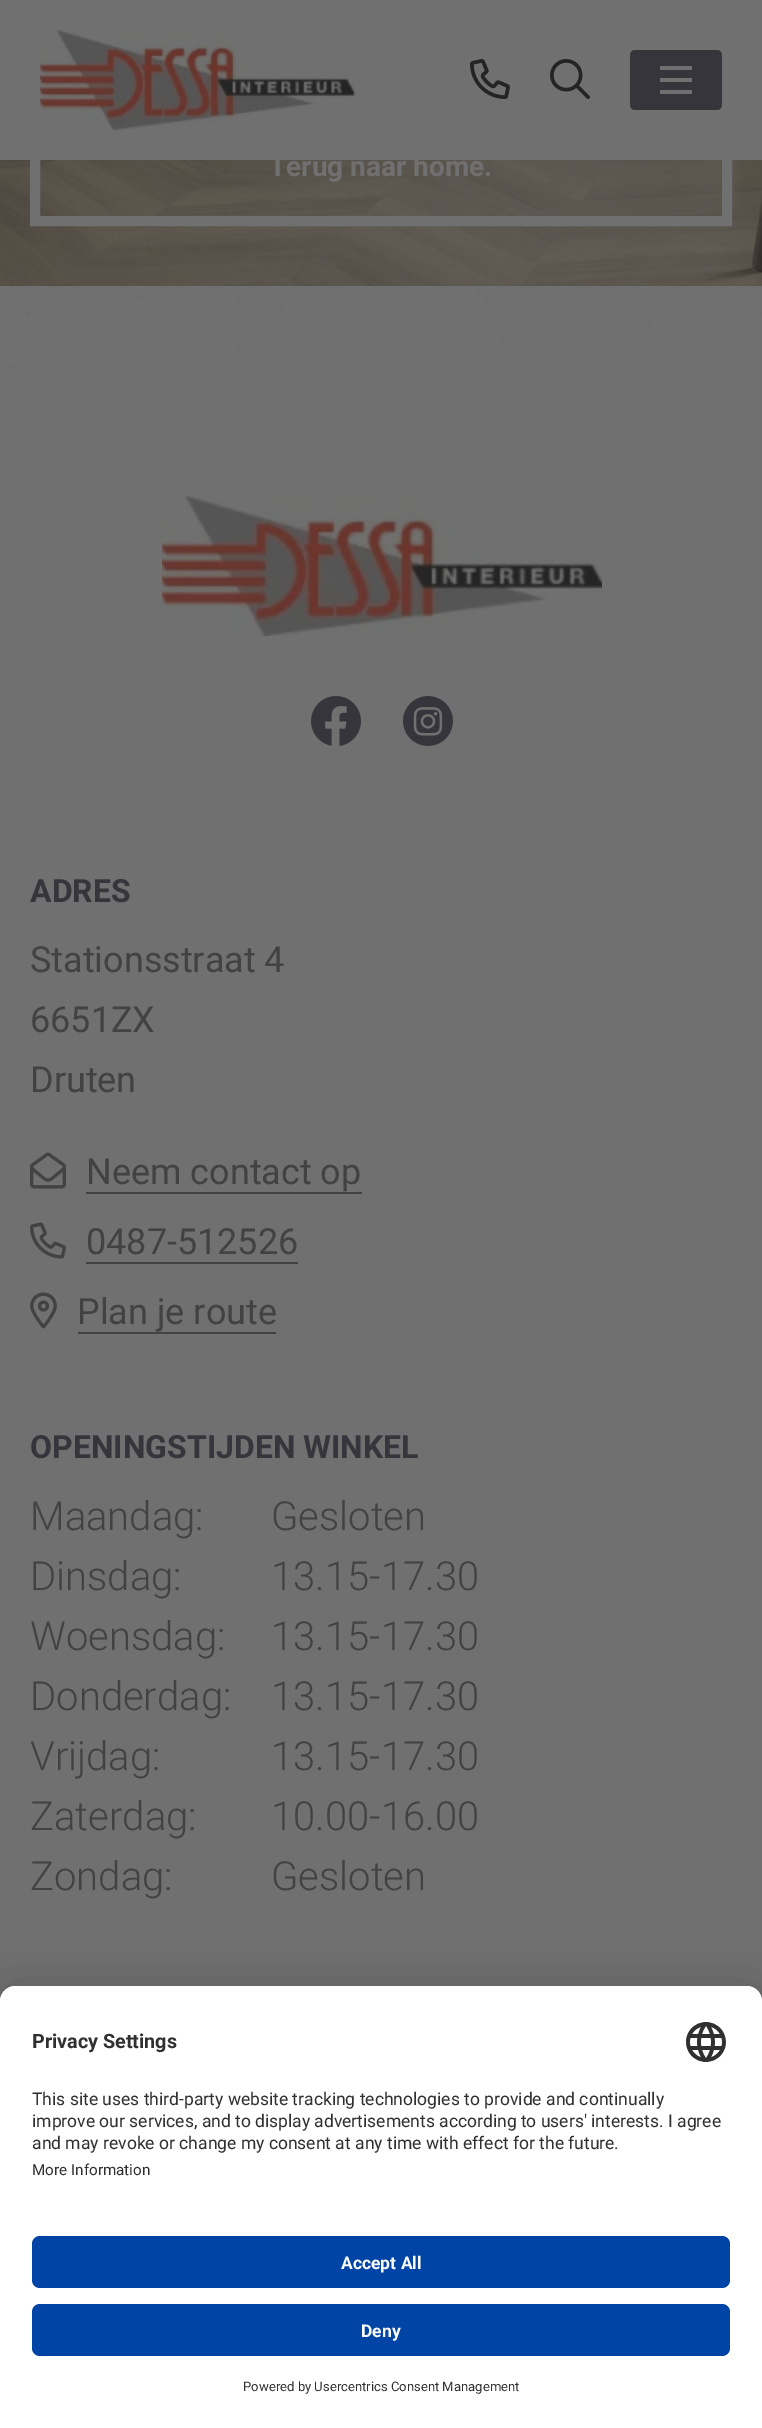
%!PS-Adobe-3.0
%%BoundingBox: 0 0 762 2428
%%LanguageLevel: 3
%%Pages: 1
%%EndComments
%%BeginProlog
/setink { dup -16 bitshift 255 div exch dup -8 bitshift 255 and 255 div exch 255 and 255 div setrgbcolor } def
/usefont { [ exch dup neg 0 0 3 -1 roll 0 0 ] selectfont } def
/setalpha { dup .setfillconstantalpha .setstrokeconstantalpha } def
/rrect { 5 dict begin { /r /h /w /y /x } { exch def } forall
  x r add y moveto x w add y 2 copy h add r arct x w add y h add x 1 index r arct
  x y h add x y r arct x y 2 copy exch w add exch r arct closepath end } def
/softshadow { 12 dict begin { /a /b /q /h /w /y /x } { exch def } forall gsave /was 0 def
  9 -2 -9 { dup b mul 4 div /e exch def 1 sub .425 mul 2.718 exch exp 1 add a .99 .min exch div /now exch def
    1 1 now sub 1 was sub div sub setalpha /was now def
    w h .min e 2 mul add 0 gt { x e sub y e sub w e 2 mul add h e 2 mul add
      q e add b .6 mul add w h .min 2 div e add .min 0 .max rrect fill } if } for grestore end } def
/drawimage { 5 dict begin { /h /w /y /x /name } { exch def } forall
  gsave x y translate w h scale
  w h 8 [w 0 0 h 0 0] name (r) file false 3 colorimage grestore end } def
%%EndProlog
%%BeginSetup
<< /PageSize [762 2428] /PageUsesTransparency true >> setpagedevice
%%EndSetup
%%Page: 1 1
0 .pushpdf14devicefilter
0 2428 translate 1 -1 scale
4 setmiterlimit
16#707070 setink
0 0 762 2428 rectfill
(img1.raw) 0 286 762 90 drawimage
(img5.raw) 0 160 762 126 drawimage
10 setlinewidth
35 111 692 110 rectstroke
(img2.raw) 40 30 315 100 drawimage
(img3.raw) 470 59 40 40 drawimage
(img4.raw) 550 59 40 40 drawimage
16#37353C setink
630 50 92 60 5 rrect fill
[
    [660 78 32 4 16#707070]
    [660 66 32 4 16#707070]
    [660 90 32 4 16#707070]
] { aload pop setink rectfill } forall
/Roboto-Bold 28 usefont
269 176 moveto (Terug naar home.) show
(img6.raw) 162 496 440 140 drawimage
(img7.raw) 311 696 50 50 drawimage
(img8.raw) 403 696 50 50 drawimage
/Roboto-Bold 32 usefont
16#37353C setink
30 902 moveto (ADRES) show
/Roboto-Regular 36 usefont
16#424242 setink
[
    [(Stationsstraat 4) 30 972]
    [(6651ZX) 30 1032]
    [(Druten) 30 1092]
] { aload pop moveto show } forall
(img9.raw) 30 1152 36 37 drawimage
86 1184 moveto (Neem contact op) show
86 1192 276 2 rectfill
(img10.raw) 30 1222 36 37 drawimage
86 1254 moveto (0487-512526) show
86 1262 212 2 rectfill
(img11.raw) 30 1292 27 37 drawimage
77 1324 moveto (Plan je route) show
78 1332 198 2 rectfill
/Roboto-Bold 32 usefont
16#37353C setink
30 1458 moveto (OPENINGSTIJDEN WINKEL) show
/Roboto-Light 40 usefont
16#424242 setink
[
    [(Maandag:) 30 1530]
    [(Gesloten) 271 1530]
    [(Dinsdag:) 30 1590]
    [(13.15-17.30) 271 1590]
    [(Woensdag:) 30 1650]
    [(13.15-17.30) 271 1650]
    [(Donderdag:) 30 1710]
    [(13.15-17.30) 271 1710]
    [(Vrijdag:) 30 1770]
    [(13.15-17.30) 271 1770]
    [(Zaterdag:) 30 1830]
    [(10.00-16.00) 271 1830]
    [(Zondag:) 30 1890]
    [(Gesloten) 271 1890]
] { aload pop moveto show } forall
16#000000 setink
0 2026 762 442 16 28 0.3 softshadow
0 1996 762 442 16 26 0.22 softshadow
16#FFFFFF setink
16 1986 moveto 746 1986 lineto 755 1986 762 1993 762 2002 curveto 762 2428 lineto 0 2428 lineto 0 2002 lineto 0 1993 7 1986 16 1986 curveto closepath fill
16 1986 moveto 746 1986 lineto 755 1986 762 1993 762 2002 curveto 762 2212 lineto 0 2212 lineto 0 2002 lineto 0 1993 7 1986 16 1986 curveto closepath fill
/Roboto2-Bold 19.75 usefont
16#303030 setink
32 2048 moveto (Privacy Settings) show
(img12.raw) 686 2022 40 40 drawimage
/Roboto2-Regular 17.5 usefont
[
    [(This site uses third-party website tracking technologies to provide and continually) 32 2105]
    [(improve our services, and to display advertisements according to users' interests. I agree) 32 2127]
    [(and may revoke or change my consent at any time with effect for the future.) 32 2149]
] { aload pop moveto show } forall
/Roboto2-Regular 15.25 usefont
32 2175 moveto (More Information) show
16#0045A5 setink
32 2236 698 52 8 rrect fill
/Roboto2-Bold 17.5 usefont
16#FAFAFA setink
341 2269 moveto (Accept All) show
16#0045A5 setink
32 2304 698 52 8 rrect fill
16#FAFAFA setink
361 2337 moveto (Deny) show
/Roboto2-Regular 13.1 usefont
16#303030 setink
243 2391 moveto (Powered by Usercentrics Consent Management) show
.poppdf14devicefilter showpage
%%EOF
